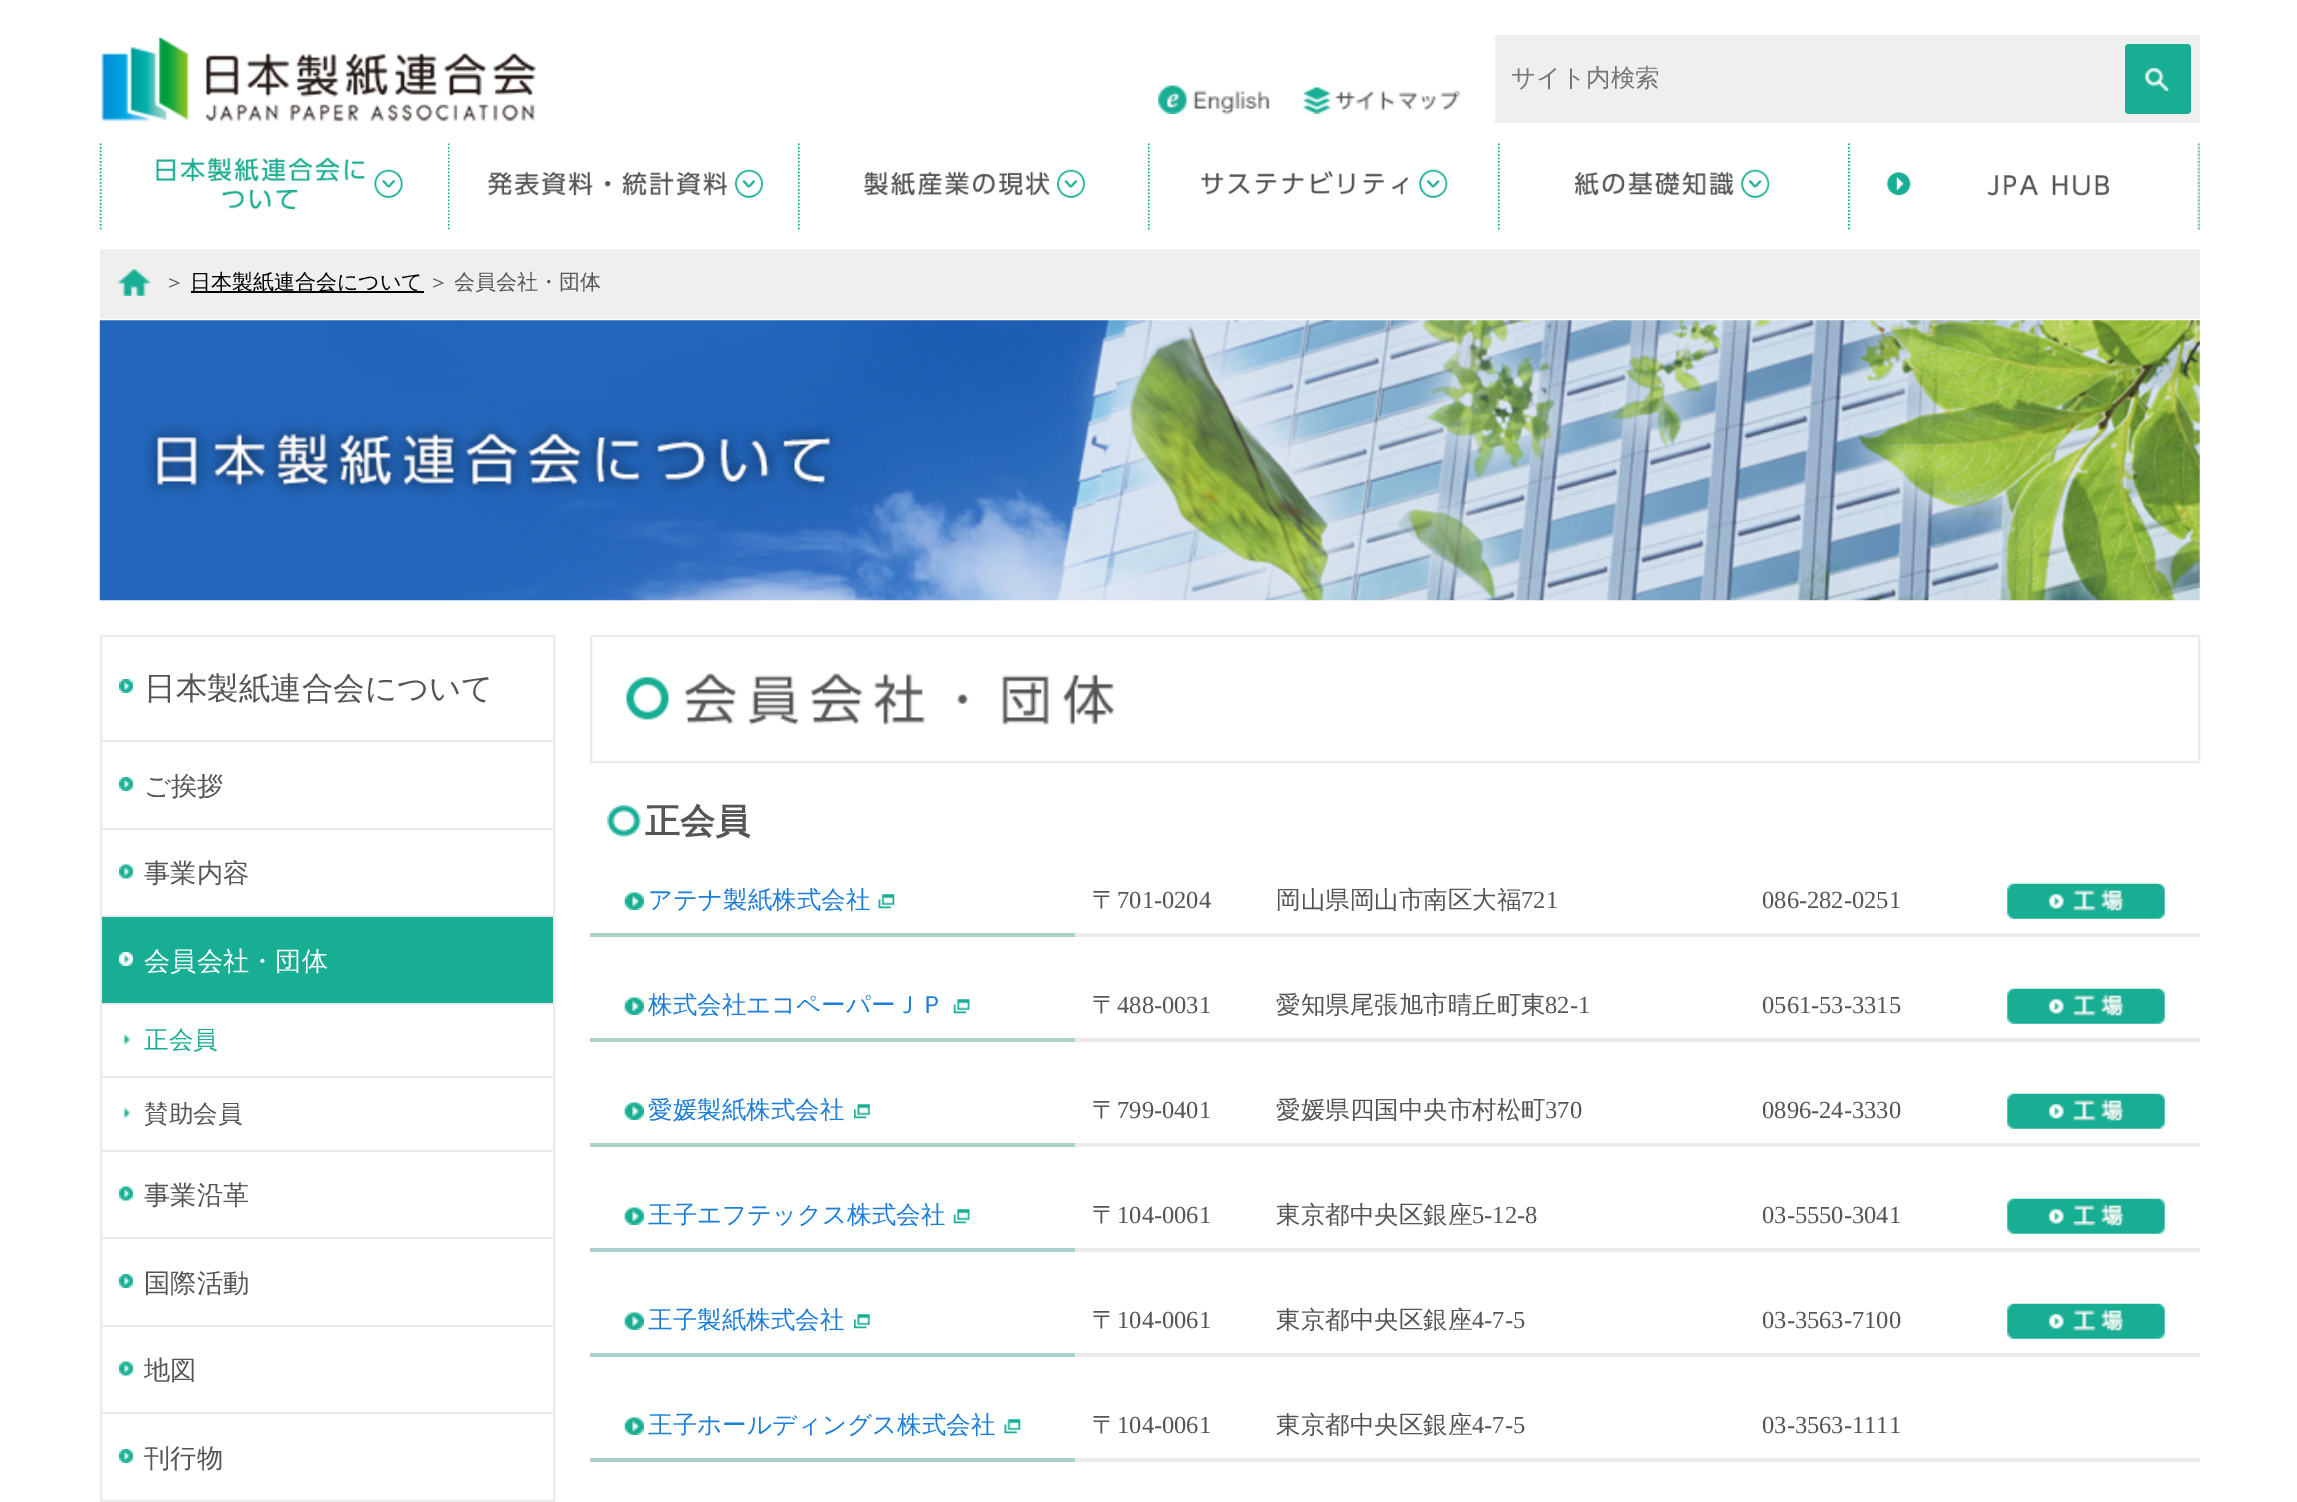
%!PS-Adobe-3.0
%%BoundingBox: 0 0 2297 1502
%%LanguageLevel: 3
%%Pages: 1
%%EndComments
%%BeginProlog
/setink { dup -16 bitshift 255 div exch dup -8 bitshift 255 and 255 div exch 255 and 255 div setrgbcolor } def
/usefont { [ exch dup neg 0 0 3 -1 roll 0 0 ] selectfont } def
/rrect { 5 dict begin { /r /h /w /y /x } { exch def } forall
  x r add y moveto x w add y 2 copy h add r arct x w add y h add x 1 index r arct
  x y h add x y r arct x y 2 copy exch w add exch r arct closepath end } def
/drawimage { 5 dict begin { /h /w /y /x /name } { exch def } forall
  gsave x y translate w h scale
  w h 8 [w 0 0 h 0 0] name (r) file false 3 colorimage grestore end } def
%%EndProlog
%%BeginSetup
<< /PageSize [2297 1502] >> setpagedevice
%%EndSetup
%%Page: 1 1
0 1502 translate 1 -1 scale
4 setmiterlimit
16#FFFFFF setink
0 0 2297 1502 rectfill
(img1.raw) 101 36 435 86 drawimage
16#EFEFEF setink
1495 35 705 88 rectfill
/WenQuanYiZenHei-Medium 24.5 usefont
16#757575 setink
1511 86 moveto (サイト内検索) show
16#18AE94 setink
2125 44 66 70 4 rrect fill
(img2.raw) 2145 68 24 23 drawimage
(img3.raw) 1158 85 112 29 drawimage
(img4.raw) 1158 85 112 29 drawimage
(img5.raw) 1303 87 157 27 drawimage
(img6.raw) 1303 90 157 24 drawimage
(img7.raw) 99 143 351 87 drawimage
(img8.raw) 449 143 351 87 drawimage
(img10.raw) 799 143 351 87 drawimage
(img9.raw) 449 143 351 87 drawimage
(img12.raw) 1149 143 351 87 drawimage
(img11.raw) 799 143 351 87 drawimage
(img14.raw) 1499 143 351 87 drawimage
(img13.raw) 1149 143 351 87 drawimage
(img16.raw) 1849 143 351 87 drawimage
(img15.raw) 1499 143 351 87 drawimage
(img17.raw) 1849 143 351 87 drawimage
16#EFEFEF setink
100 249 2100 70 rectfill
(img18.raw) 117 269 34 27 drawimage
/WenQuanYiZenHei-Medium 21 usefont
16#555555 setink
164 289 moveto (＞) show
16#000000 setink
191 291 233 2 rectfill
190 289 moveto (日本製紙連合会について) show
16#555555 setink
428 289 moveto -1 0 32 (＞ 会員会社・団体) widthshow
(img19.raw) 99 320 2101 281 drawimage
16#EBEBEB setink
2 setlinewidth
101 636 453 865 rectstroke
(img20.raw) 119 679 14 14 drawimage
/WenQuanYiZenHei-Medium 31.5 usefont
16#555555 setink
144 699 moveto (日本製紙連合会について) show
16#EBEBEB setink
102 740 451 2 rectfill
(img20.raw) 119 777 14 14 drawimage
/WenQuanYiZenHei-Medium 26.25 usefont
16#555555 setink
144 795 moveto (ご挨拶) show
16#EBEBEB setink
102 828 451 2 rectfill
(img21.raw) 119 864 14 15 drawimage
16#555555 setink
144 882 moveto (事業内容) show
16#EBEBEB setink
102 915 451 2 rectfill
16#18AE94 setink
102 917 451 86 rectfill
(img22.raw) 119 952 14 14 drawimage
16#FFFFFF setink
144 970 moveto (会員会社・団体) show
16#EBEBEB setink
102 1003 451 2 rectfill
(img23.raw) 123 1034 7 12 drawimage
/WenQuanYiZenHei-Medium 24.5 usefont
16#18AE94 setink
144 1048 moveto (正会員) show
16#EBEBEB setink
102 1076 451 2 rectfill
(img24.raw) 123 1107 7 12 drawimage
16#555555 setink
144 1122 moveto (賛助会員) show
16#EBEBEB setink
102 1150 451 2 rectfill
(img21.raw) 119 1186 14 15 drawimage
/WenQuanYiZenHei-Medium 26.25 usefont
16#555555 setink
144 1204 moveto (事業沿革) show
16#EBEBEB setink
102 1237 451 2 rectfill
(img20.raw) 119 1274 14 14 drawimage
16#555555 setink
144 1292 moveto (国際活動) show
16#EBEBEB setink
102 1325 451 2 rectfill
(img21.raw) 119 1361 14 15 drawimage
16#555555 setink
144 1379 moveto (地図) show
16#EBEBEB setink
102 1412 451 2 rectfill
(img20.raw) 119 1449 14 14 drawimage
16#555555 setink
144 1467 moveto (刊行物) show
16#EBEBEB setink
591 636 1608 126 rectstroke
(img25.raw) 626 673 489 52 drawimage
(img26.raw) 607 805 34 32 drawimage
/WenQuanYiZenHei-Bold 35 usefont
16#555555 setink
645 833 moveto (正会員) show
16#ABD1CB setink
590 933 485 4 rectfill
(img27.raw) 624 892 20 18 drawimage
/WenQuanYiZenHei-Medium 24.5 usefont
16#1D7ED8 setink
648 908 moveto (アテナ製紙株式会社) show
(img28.raw) 878 894 17 15 drawimage
16#EBEBEB setink
1075 933 1125 4 rectfill
16#555555 setink
1092 908 moveto (〒) show
/LiberationSerif-Regular 24.5 usefont
1117 908 moveto (701-0204) show
/WenQuanYiZenHei-Medium 24.5 usefont
1276 908 moveto (岡山県岡山市南区大福) show
/LiberationSerif-Regular 24.5 usefont
1521 908 moveto (721) show
1762 908 moveto (086-282-0251) show
(img29.raw) 2007 883 158 36 drawimage
16#ABD1CB setink
590 1038 485 4 rectfill
(img27.raw) 624 997 20 18 drawimage
/WenQuanYiZenHei-Medium 24.5 usefont
16#1D7ED8 setink
648 1013 moveto (株式会社エコペーパーＪＰ) show
(img30.raw) 953 999 17 15 drawimage
16#EBEBEB setink
1075 1038 1125 4 rectfill
16#555555 setink
1092 1013 moveto (〒) show
/LiberationSerif-Regular 24.5 usefont
1117 1013 moveto (488-0031) show
/WenQuanYiZenHei-Medium 24.5 usefont
1276 1013 moveto (愛知県尾張旭市晴丘町東) show
/LiberationSerif-Regular 24.5 usefont
1545 1013 moveto (82-1) show
1762 1013 moveto (0561-53-3315) show
(img29.raw) 2007 988 158 36 drawimage
16#ABD1CB setink
590 1143 485 4 rectfill
(img27.raw) 624 1102 20 18 drawimage
/WenQuanYiZenHei-Medium 24.5 usefont
16#1D7ED8 setink
648 1118 moveto (愛媛製紙株式会社) show
(img31.raw) 854 1104 16 15 drawimage
16#EBEBEB setink
1075 1143 1125 4 rectfill
16#555555 setink
1092 1118 moveto (〒) show
/LiberationSerif-Regular 24.5 usefont
1117 1118 moveto (799-0401) show
/WenQuanYiZenHei-Medium 24.5 usefont
1276 1118 moveto (愛媛県四国中央市村松町) show
/LiberationSerif-Regular 24.5 usefont
1545 1118 moveto (370) show
1762 1118 moveto (0896-24-3330) show
(img29.raw) 2007 1093 158 36 drawimage
16#ABD1CB setink
590 1248 485 4 rectfill
(img27.raw) 624 1207 20 18 drawimage
/WenQuanYiZenHei-Medium 24.5 usefont
16#1D7ED8 setink
648 1223 moveto (王子エフテックス株式会社) show
(img30.raw) 953 1209 17 15 drawimage
16#EBEBEB setink
1075 1248 1125 4 rectfill
16#555555 setink
1092 1223 moveto (〒) show
/LiberationSerif-Regular 24.5 usefont
1117 1223 moveto (104-0061) show
/WenQuanYiZenHei-Medium 24.5 usefont
1276 1223 moveto (東京都中央区銀座) show
/LiberationSerif-Regular 24.5 usefont
1472 1223 moveto (5-12-8) show
1762 1223 moveto (03-5550-3041) show
(img29.raw) 2007 1198 158 36 drawimage
16#ABD1CB setink
590 1353 485 4 rectfill
(img27.raw) 624 1312 20 18 drawimage
/WenQuanYiZenHei-Medium 24.5 usefont
16#1D7ED8 setink
648 1328 moveto (王子製紙株式会社) show
(img31.raw) 854 1314 16 15 drawimage
16#EBEBEB setink
1075 1353 1125 4 rectfill
16#555555 setink
1092 1328 moveto (〒) show
/LiberationSerif-Regular 24.5 usefont
1117 1328 moveto (104-0061) show
/WenQuanYiZenHei-Medium 24.5 usefont
1276 1328 moveto (東京都中央区銀座) show
/LiberationSerif-Regular 24.5 usefont
1472 1328 moveto (4-7-5) show
1762 1328 moveto (03-3563-7100) show
(img29.raw) 2007 1303 158 36 drawimage
16#ABD1CB setink
590 1458 485 4 rectfill
(img27.raw) 624 1417 20 18 drawimage
/WenQuanYiZenHei-Medium 24.5 usefont
16#1D7ED8 setink
648 1433 moveto (王子ホールディングス株式会社) show
(img32.raw) 1004 1419 17 15 drawimage
16#EBEBEB setink
1075 1458 1125 4 rectfill
16#555555 setink
1092 1433 moveto (〒) show
/LiberationSerif-Regular 24.5 usefont
1117 1433 moveto (104-0061) show
/WenQuanYiZenHei-Medium 24.5 usefont
1276 1433 moveto (東京都中央区銀座) show
/LiberationSerif-Regular 24.5 usefont
1472 1433 moveto (4-7-5) show
1762 1433 moveto (03-3563-1111) show
showpage
%%EOF
